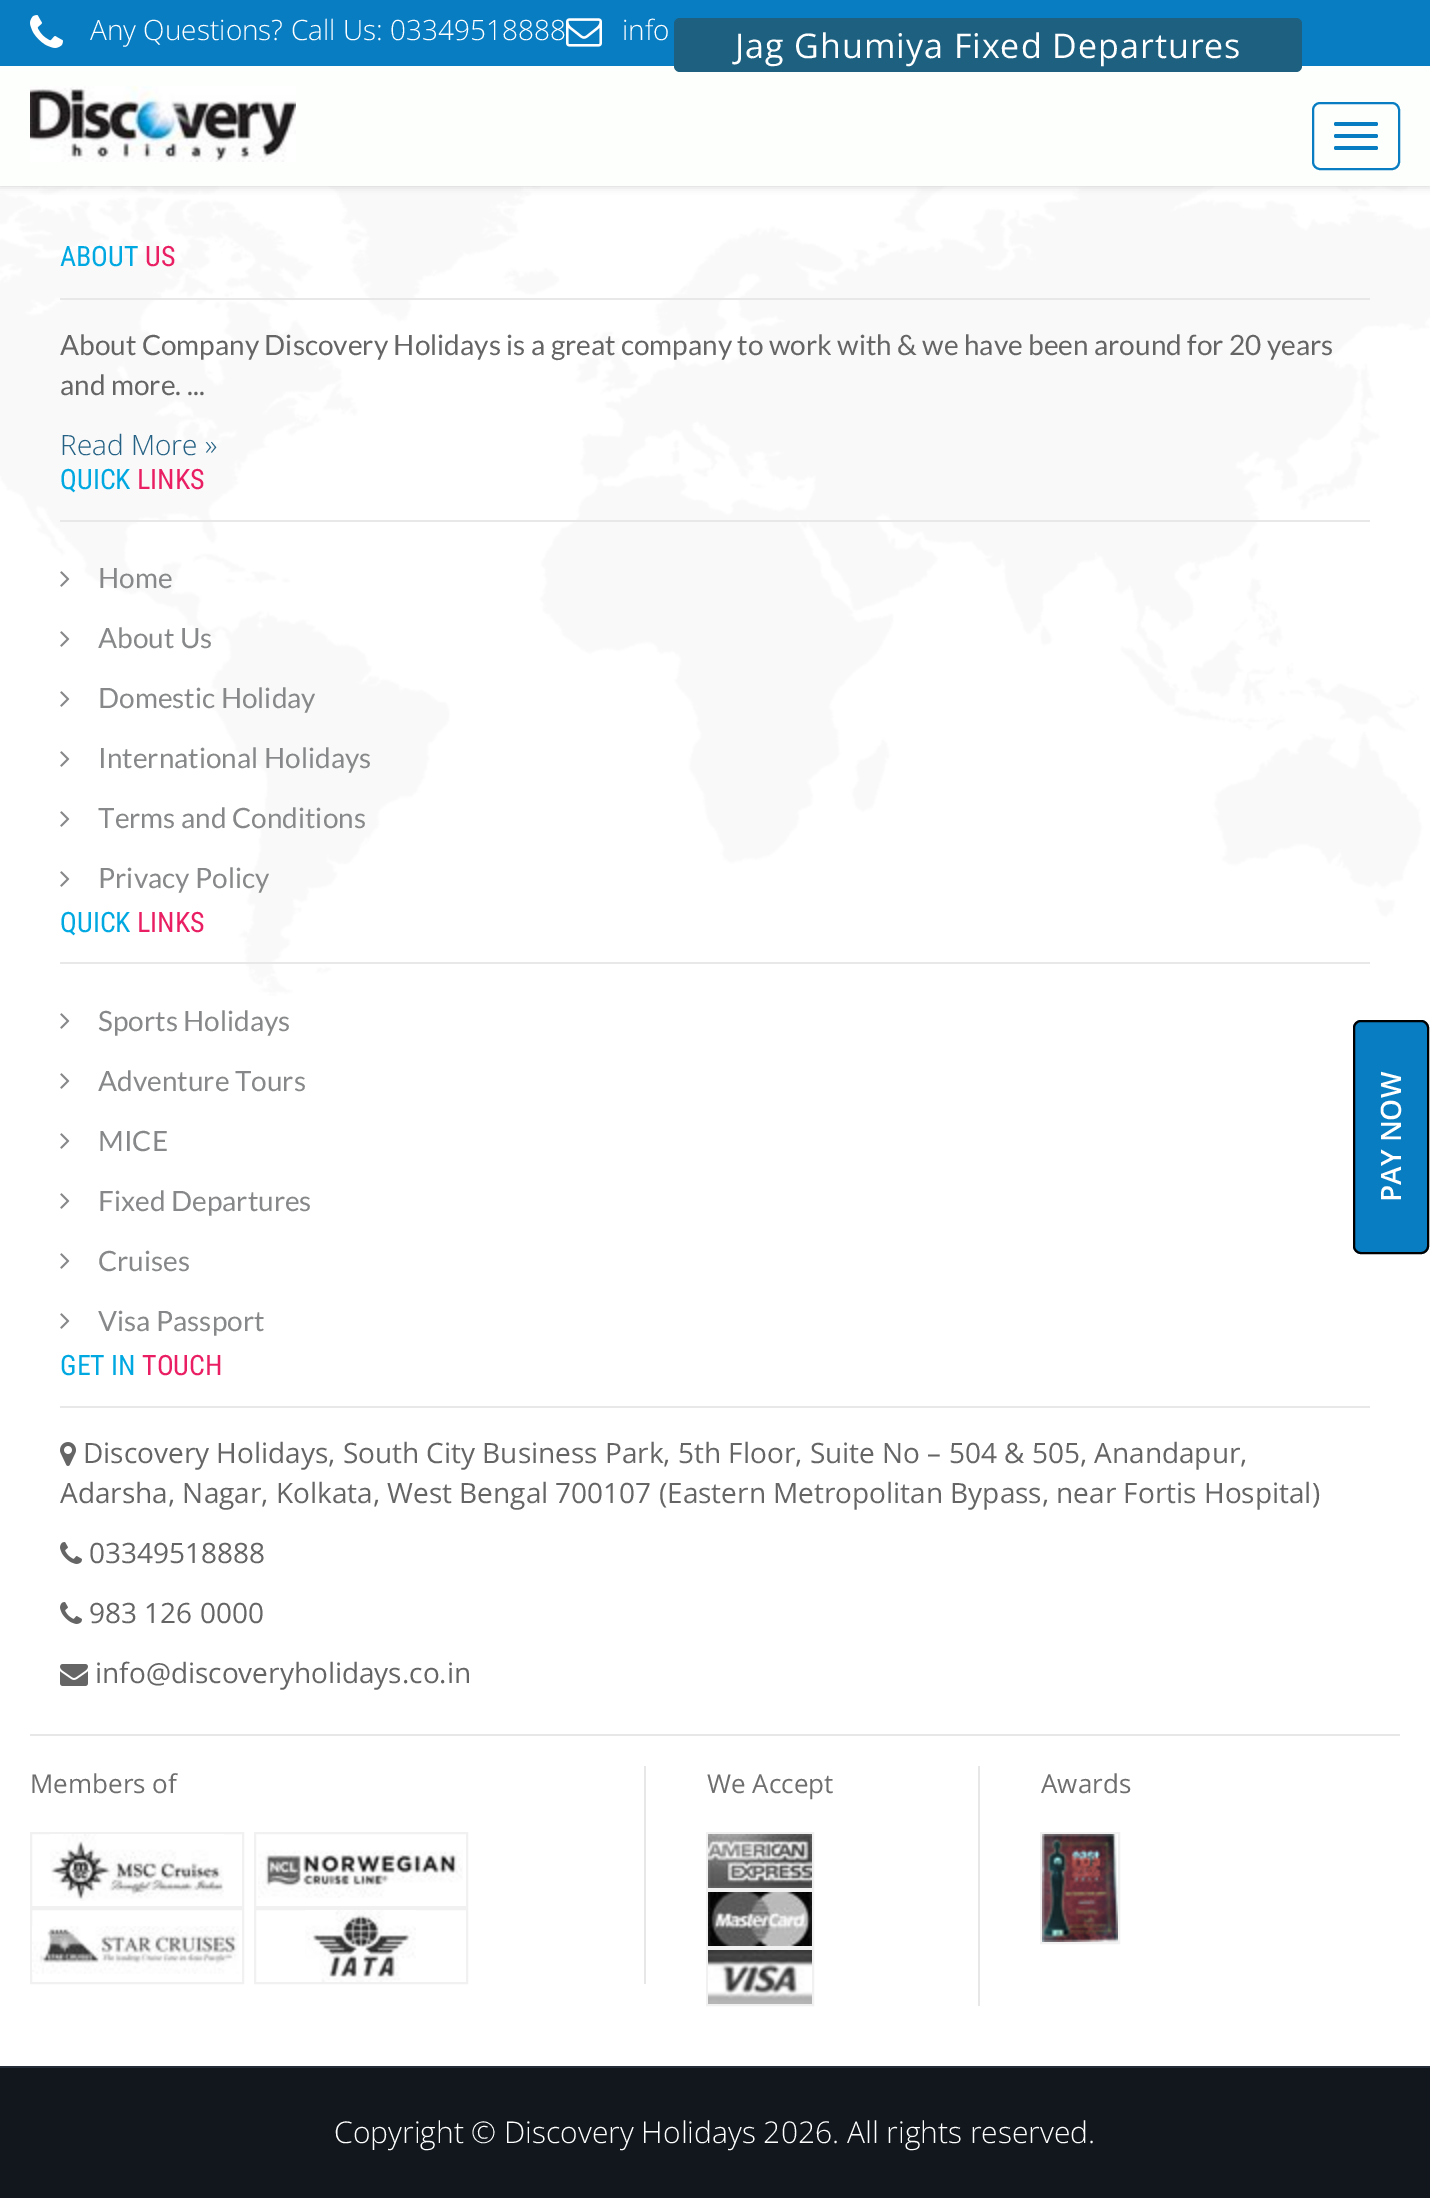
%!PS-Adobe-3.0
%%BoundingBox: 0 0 1430 2198
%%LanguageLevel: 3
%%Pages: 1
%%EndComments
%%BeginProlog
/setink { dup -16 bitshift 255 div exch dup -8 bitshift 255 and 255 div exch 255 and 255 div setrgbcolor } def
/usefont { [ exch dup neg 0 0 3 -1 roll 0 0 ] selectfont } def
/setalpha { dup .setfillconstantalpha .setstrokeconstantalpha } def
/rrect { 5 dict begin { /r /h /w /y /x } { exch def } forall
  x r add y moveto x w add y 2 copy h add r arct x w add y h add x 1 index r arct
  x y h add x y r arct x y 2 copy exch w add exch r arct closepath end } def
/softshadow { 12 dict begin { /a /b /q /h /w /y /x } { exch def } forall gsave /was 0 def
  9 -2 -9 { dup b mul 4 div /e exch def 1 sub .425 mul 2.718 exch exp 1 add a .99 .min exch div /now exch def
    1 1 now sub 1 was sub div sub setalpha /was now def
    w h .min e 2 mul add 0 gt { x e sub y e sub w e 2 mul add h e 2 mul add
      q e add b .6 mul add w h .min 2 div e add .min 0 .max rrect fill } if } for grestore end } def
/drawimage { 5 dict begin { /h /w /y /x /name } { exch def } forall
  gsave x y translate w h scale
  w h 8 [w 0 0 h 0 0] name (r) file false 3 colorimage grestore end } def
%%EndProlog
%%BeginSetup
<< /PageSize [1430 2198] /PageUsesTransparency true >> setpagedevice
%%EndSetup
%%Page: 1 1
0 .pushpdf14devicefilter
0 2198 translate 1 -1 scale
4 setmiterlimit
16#FFFFFF setink
0 0 1430 2198 rectfill
(img4.raw) 0 186 1430 810 drawimage
16#CCCCCC setink
0 0 1430 186 0 4 1 softshadow
16#087DC2 setink
0 0 1430 66 rectfill
(img1.raw) 30 15 33 33 drawimage
/OpenSans-Light 28 usefont
16#FFFFFF setink
90 40 moveto (Any Questions? Call Us: 03349518888) show
(img2.raw) 566 18 36 29 drawimage
622 40 moveto (info) show
16#FDFFFC setink
0 66 1430 120 rectfill
(img3.raw) 30 86 266 76 drawimage
16#087DC2 setink
2 setlinewidth
1313 103 86 66 7 rrect stroke
1334 122 44 4 2 rrect fill
1334 134 44 4 2 rrect fill
1334 146 44 4 2 rrect fill
16#1D6080 setink
674 18 628 54 6 rrect fill
/OpenSans-Regular 34 usefont
16#FFFFFF setink
735 58 moveto 1 0 (Jag Ghumiya Fixed Departures) ashow
/RobotoCondensed-Regular 28 usefont
16#00A8E2 setink
60 266 moveto (ABOUT) show
16#E91E63 setink
145 266 moveto (US) show
16#E8E8E8 setink
60 298 1310 2 rectfill
/Lato-Regular 28 usefont
16#656565 setink
60 355 moveto (About Company Discovery Holidays is a great company to work with & we have been around for 20 years) show
60 395 moveto (and more. ...) show
/OpenSans-Light 28 usefont
16#246184 setink
60 455 moveto (Read More ») show
/RobotoCondensed-Regular 28 usefont
16#00A8E2 setink
60 489 moveto (QUICK) show
16#E91E63 setink
137 489 moveto (LINKS) show
16#E8E8E8 setink
60 520 1310 2 rectfill
(img5.raw) 60 571 10 16 drawimage
/Lato-Regular 28 usefont
16#878889 setink
98 588 moveto (Home) show
(img5.raw) 60 631 10 16 drawimage
98 648 moveto (About Us) show
(img5.raw) 60 691 10 16 drawimage
98 708 moveto (Domestic Holiday) show
(img5.raw) 60 751 10 16 drawimage
98 768 moveto (International Holidays) show
(img5.raw) 60 811 10 16 drawimage
98 828 moveto (Terms and Conditions) show
(img5.raw) 60 871 10 16 drawimage
98 888 moveto (Privacy Policy) show
/RobotoCondensed-Regular 28 usefont
16#00A8E2 setink
60 932 moveto (QUICK) show
16#E91E63 setink
137 932 moveto (LINKS) show
16#E8E8E8 setink
60 962 1310 2 rectfill
(img5.raw) 60 1013 10 16 drawimage
/Lato-Regular 28 usefont
16#878889 setink
98 1031 moveto (Sports Holidays) show
(img5.raw) 60 1073 10 16 drawimage
98 1091 moveto (Adventure Tours) show
(img5.raw) 60 1133 10 16 drawimage
98 1151 moveto (MICE) show
(img5.raw) 60 1193 10 16 drawimage
98 1211 moveto (Fixed Departures) show
(img5.raw) 60 1253 10 16 drawimage
98 1271 moveto (Cruises) show
(img5.raw) 60 1313 10 16 drawimage
98 1331 moveto (Visa Passport) show
/RobotoCondensed-Regular 28 usefont
16#00A8E2 setink
60 1375 moveto (GET IN) show
16#E91E63 setink
142 1375 moveto (TOUCH) show
16#E8E8E8 setink
60 1406 1310 2 rectfill
(img6.raw) 60 1442 16 24 drawimage
/OpenSans-Regular 28 usefont
16#656565 setink
83 1463 moveto (Discovery Holidays, South City Business Park, 5th Floor, Suite No – 504 & 505, Anandapur,) show
60 1503 moveto (Adarsha, Nagar, Kolkata, West Bengal 700107 \(Eastern Metropolitan Bypass, near Fortis Hospital\)) show
(img7.raw) 60 1542 22 22 drawimage
89 1563 moveto (03349518888) show
(img7.raw) 60 1602 22 22 drawimage
89 1623 moveto (983 126 0000) show
(img8.raw) 60 1664 28 22 drawimage
95 1683 moveto (info@discoveryholidays.co.in) show
16#E7E7E7 setink
30 1734 1370 2 rectfill
644 1766 2 218 rectfill
/OpenSans-Regular 26 usefont
16#6E6E6E setink
30 1793 moveto (Members of) show
16#F1F1F1 setink
31 1833 212 74 rectstroke
(img9.raw) 50 1834 174 67 drawimage
255 1833 212 74 rectstroke
(img10.raw) 258 1850 205 48 drawimage
31 1909 212 74 rectstroke
(img11.raw) 32 1926 207 48 drawimage
255 1909 212 74 rectstroke
(img12.raw) 305 1910 111 72 drawimage
16#E7E7E7 setink
978 1766 2 240 rectfill
16#6E6E6E setink
707 1793 moveto (We Accept) show
16#F1F1F1 setink
707 1833 106 56 rectstroke
(img13.raw) 708 1834 104 54 drawimage
707 1891 106 56 rectstroke
(img14.raw) 708 1892 104 54 drawimage
707 1949 106 56 rectstroke
(img15.raw) 708 1950 104 54 drawimage
16#6E6E6E setink
1041 1793 moveto (Awards) show
16#F1F1F1 setink
1041 1833 78 110 rectstroke
(img16.raw) 1042 1834 76 108 drawimage
16#11171D setink
0 2068 1430 130 rectfill
16#242D37 setink
0 2066 1430 2 rectfill
/OpenSans-Light 30 usefont
16#FFFFFF setink
334 2143 moveto (Copyright © Discovery Holidays 2026. All rights reserved.) show
16#087DC2 setink
1353 1246 moveto 1353 1028 lineto 1353 1024 1357 1020 1361 1020 curveto 1421 1020 lineto 1425 1020 1429 1024 1429 1028 curveto 1429 1246 lineto 1429 1250 1425 1254 1421 1254 curveto 1361 1254 lineto 1357 1254 1353 1250 1353 1246 curveto closepath fill
16#000000 setink
1354 1246 moveto 1354 1028 lineto 1354 1024 1357 1021 1361 1021 curveto 1421 1021 lineto 1425 1021 1428 1024 1428 1028 curveto 1428 1246 lineto 1428 1250 1425 1253 1421 1253 curveto 1361 1253 lineto 1357 1253 1354 1250 1354 1246 curveto closepath stroke
/OpenSans-SemiBold 28 usefont
16#FFFFFF setink
gsave 1401 1202 translate -90 rotate 0 0 moveto (PAY NOW) show grestore
.poppdf14devicefilter showpage
%%EOF
